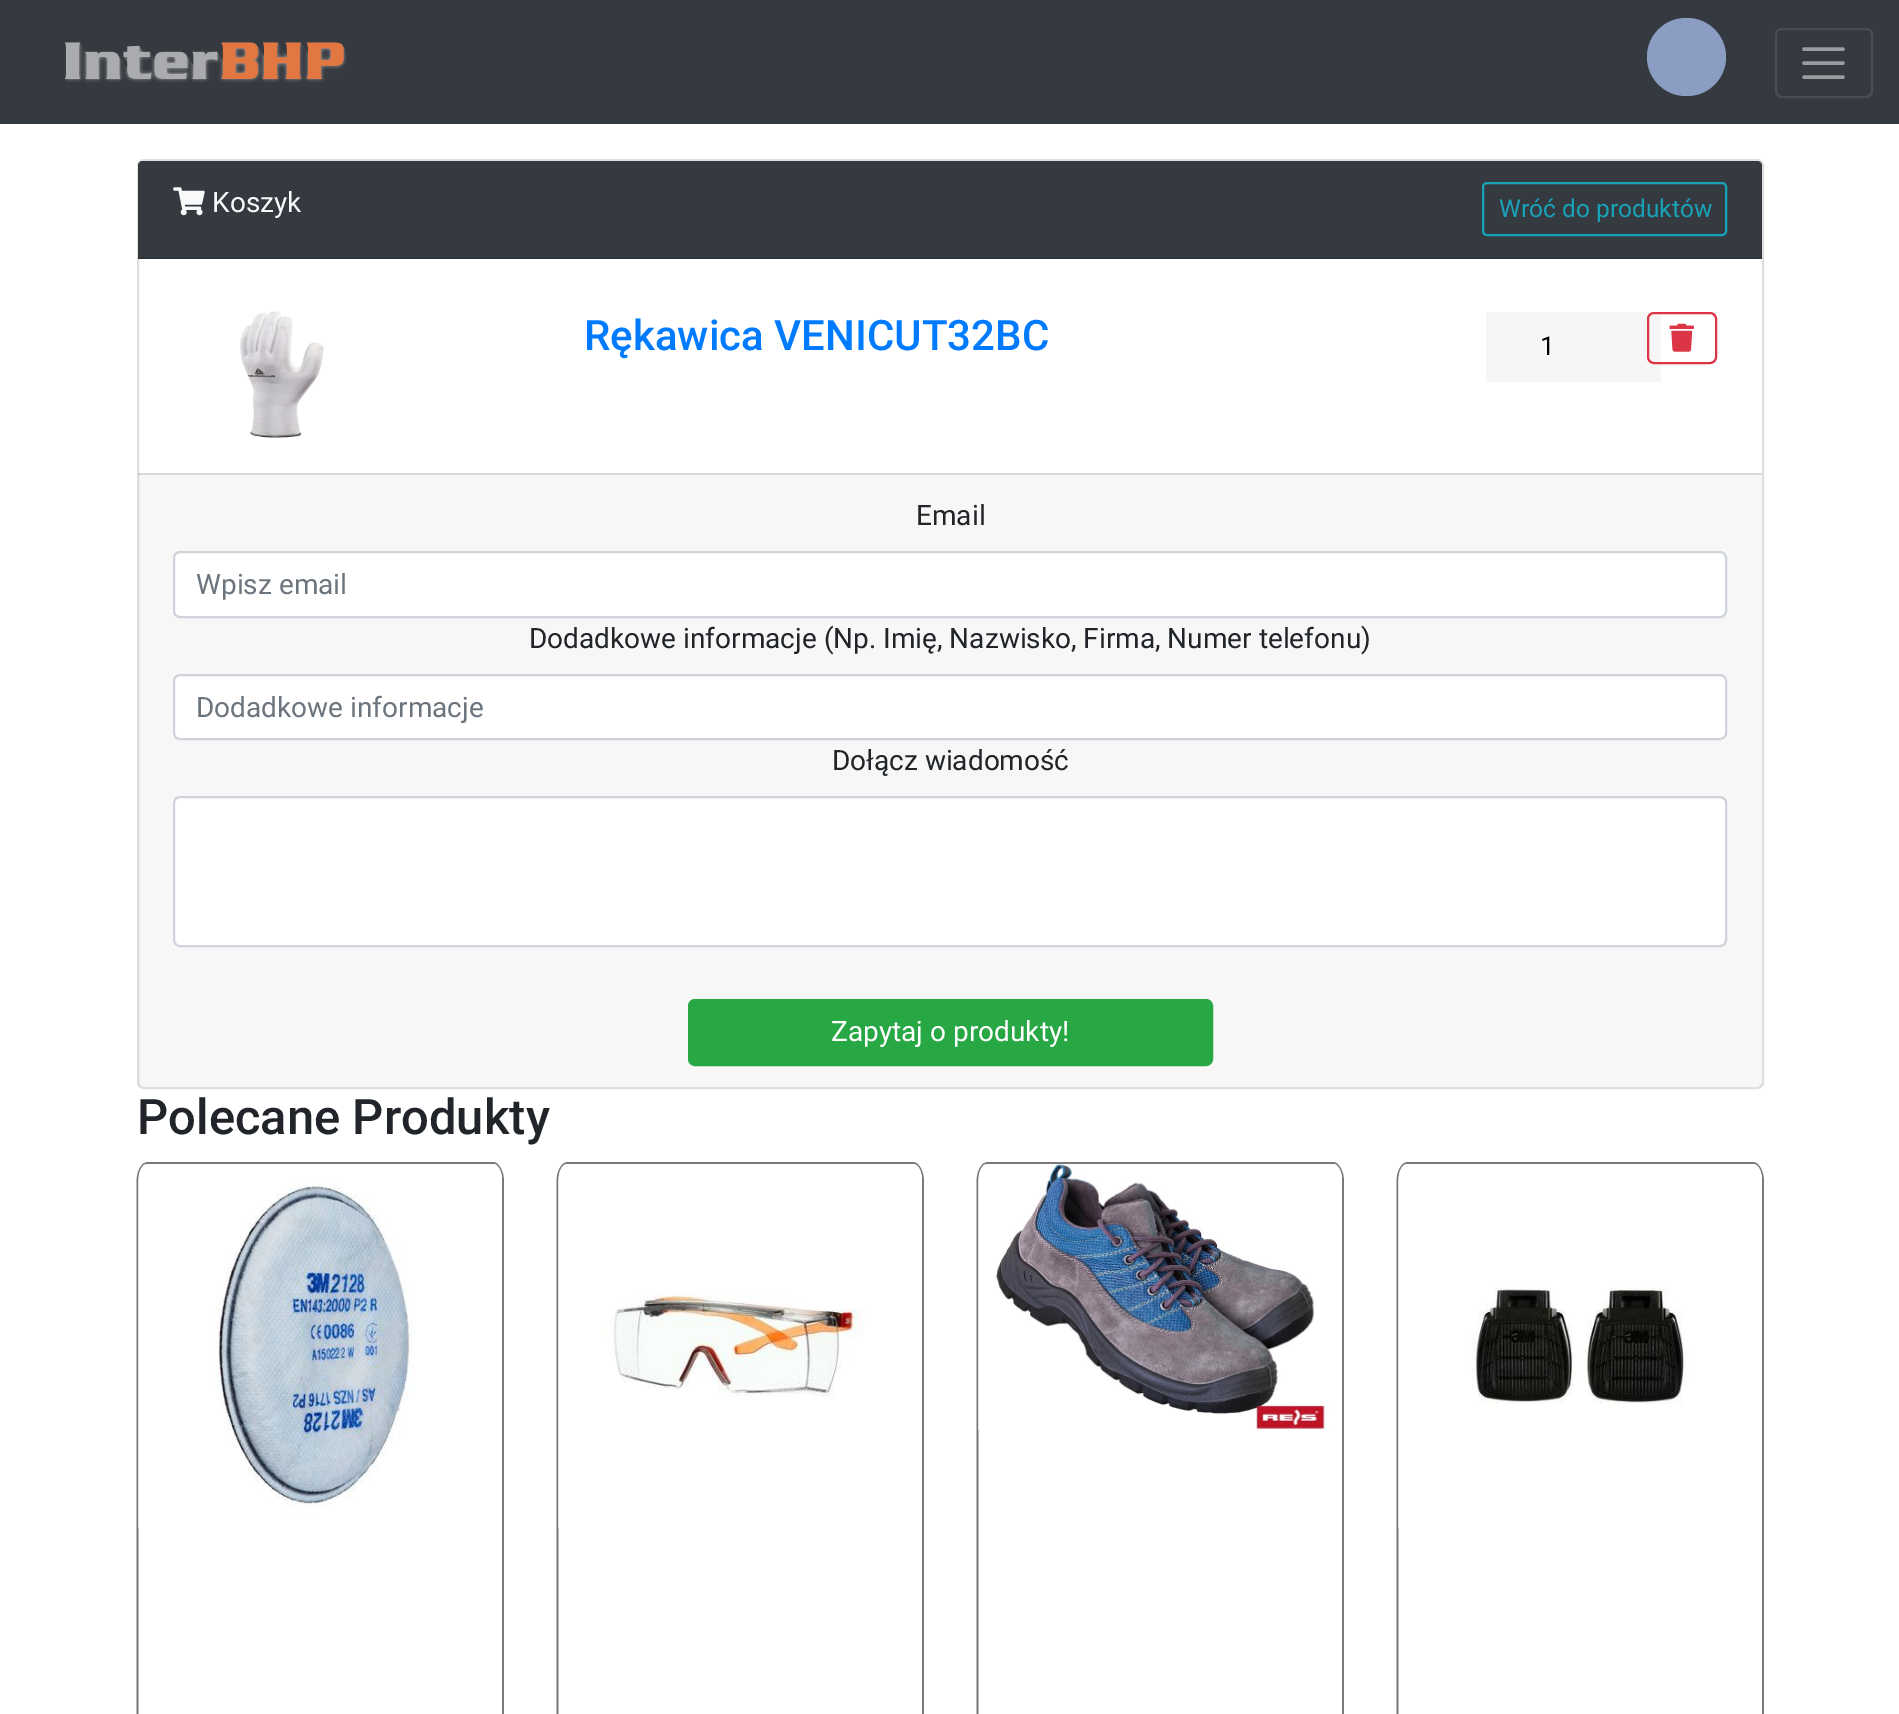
%!PS-Adobe-3.0
%%BoundingBox: 0 0 1899 1714
%%LanguageLevel: 3
%%Pages: 1
%%EndComments
%%BeginProlog
/setink { dup -16 bitshift 255 div exch dup -8 bitshift 255 and 255 div exch 255 and 255 div setrgbcolor } def
/usefont { [ exch dup neg 0 0 3 -1 roll 0 0 ] selectfont } def
/setalpha { dup .setfillconstantalpha .setstrokeconstantalpha } def
/rrect { 5 dict begin { /r /h /w /y /x } { exch def } forall
  x r add y moveto x w add y 2 copy h add r arct x w add y h add x 1 index r arct
  x y h add x y r arct x y 2 copy exch w add exch r arct closepath end } def
/drawimage { 5 dict begin { /h /w /y /x /name } { exch def } forall
  gsave x y translate w h scale
  w h 8 [w 0 0 h 0 0] name (r) file false 3 colorimage grestore end } def
%%EndProlog
%%BeginSetup
<< /PageSize [1899 1714] /PageUsesTransparency true >> setpagedevice
%%EndSetup
%%Page: 1 1
0 .pushpdf14devicefilter
0 1714 translate 1 -1 scale
4 setmiterlimit
16#FFFFFF setink
0 0 1899 1714 rectfill
16#343A40 setink
0 0 1899 124 rectfill
(img1.raw) 64 42 283 41 drawimage
16#8B9DC3 setink
1647 18 79 78 39 rrect fill
16#484E53 setink
2 setlinewidth
1776 29 96 68 6 rrect stroke
16#9A9DA0 setink
3.5 setlinewidth
1 setlinecap
1804 49 moveto 1843 49 lineto 1804 63 moveto 1843 63 lineto 1804 77 moveto 1843 77 lineto stroke
16#DFDFDF setink
2 setlinewidth
0 setlinecap
138 160 1625 928 6 rrect stroke
16#343A40 setink
143 161 moveto 1757 161 lineto 1760 161 1762 163 1762 166 curveto 1762 259 lineto 138 259 lineto 138 166 lineto 138 163 140 161 143 161 curveto closepath fill
16#2E3338 setink
138 257 1624 2 rectfill
(img2.raw) 173 187 32 29 drawimage
/Roboto-Regular 28 usefont
16#F8F9FA setink
212 212 moveto (Koszyk) show
16#17A2B8 setink
1483 183 243 52 4 rrect stroke
/Roboto-Regular 24.5 usefont
1499 217 moveto (Wróć do produktów) show
(img3.raw) 240 311 84 127 drawimage
/Roboto-Medium 42 usefont
16#007BFF setink
584 350 moveto (Rękawica VENICUT32BC) show
16#F6F6F6 setink
1486 312 175 70 rectfill
/Roboto-Regular 26 usefont
16#000000 setink
1540 355 moveto (1) show
16#DC3545 setink
1648 313 68 50 6 rrect stroke
(img4.raw) 1669 323 25 29 drawimage
0.03 setalpha
16#000000 setink
138 473 1624 614 rectfill
0.12 setalpha
138 473 1624 2 rectfill
/Roboto-Regular 28 usefont
1 setalpha
16#212529 setink
916 525 moveto (Email) show
16#FFFFFF setink
174 552 1552 65 6 rrect gsave fill grestore
16#CED4DA setink
stroke
16#6C757D setink
196 594 moveto (Wpisz email) show
16#212529 setink
529 648 moveto (Dodadkowe informacje \(Np. Imię, Nazwisko, Firma, Numer telefonu\)) show
16#FFFFFF setink
174 675 1552 64 6 rrect gsave fill grestore
16#CED4DA setink
stroke
16#6C757D setink
196 717 moveto (Dodadkowe informacje) show
16#212529 setink
832 770 moveto (Dołącz wiadomość) show
16#FFFFFF setink
174 797 1552 149 6 rrect gsave fill grestore
16#CED4DA setink
stroke
16#28A745 setink
689 1000 523 65 6 rrect gsave fill grestore
stroke
16#FFFFFF setink
831 1041 moveto (Zapytaj o produkty!) show
/Roboto-Medium 49 usefont
16#212529 setink
137 1134 moveto (Polecane Produkty) show
16#7A7A7A setink
1.8 setlinewidth
147.5 1163 moveto 493 1163 lineto 498.5 1163 503 1171 503 1181 curveto 503 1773 lineto 503 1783 498.5 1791 493 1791 curveto 147.5 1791 lineto 142 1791 137.5 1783 137.5 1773 curveto 137.5 1181 lineto 137.5 1171 142 1163 147.5 1163 curveto closepath stroke
(img5.raw) 138 1164 364 364 drawimage
567.5 1163 moveto 913 1163 lineto 918.5 1163 923 1171 923 1181 curveto 923 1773 lineto 923 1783 918.5 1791 913 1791 curveto 567.5 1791 lineto 562 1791 557.5 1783 557.5 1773 curveto 557.5 1181 lineto 557.5 1171 562 1163 567.5 1163 curveto closepath stroke
(img6.raw) 558 1164 364 364 drawimage
987.5 1163 moveto 1333 1163 lineto 1338.5 1163 1343 1171 1343 1181 curveto 1343 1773 lineto 1343 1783 1338.5 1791 1333 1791 curveto 987.5 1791 lineto 982 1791 977.5 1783 977.5 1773 curveto 977.5 1181 lineto 977.5 1171 982 1163 987.5 1163 curveto closepath stroke
(img7.raw) 978 1164 364 266 drawimage
1407.5 1163 moveto 1753 1163 lineto 1758.5 1163 1763 1171 1763 1181 curveto 1763 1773 lineto 1763 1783 1758.5 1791 1753 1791 curveto 1407.5 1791 lineto 1402 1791 1397.5 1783 1397.5 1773 curveto 1397.5 1181 lineto 1397.5 1171 1402 1163 1407.5 1163 curveto closepath stroke
(img8.raw) 1398 1164 364 364 drawimage
.poppdf14devicefilter showpage
%%EOF
